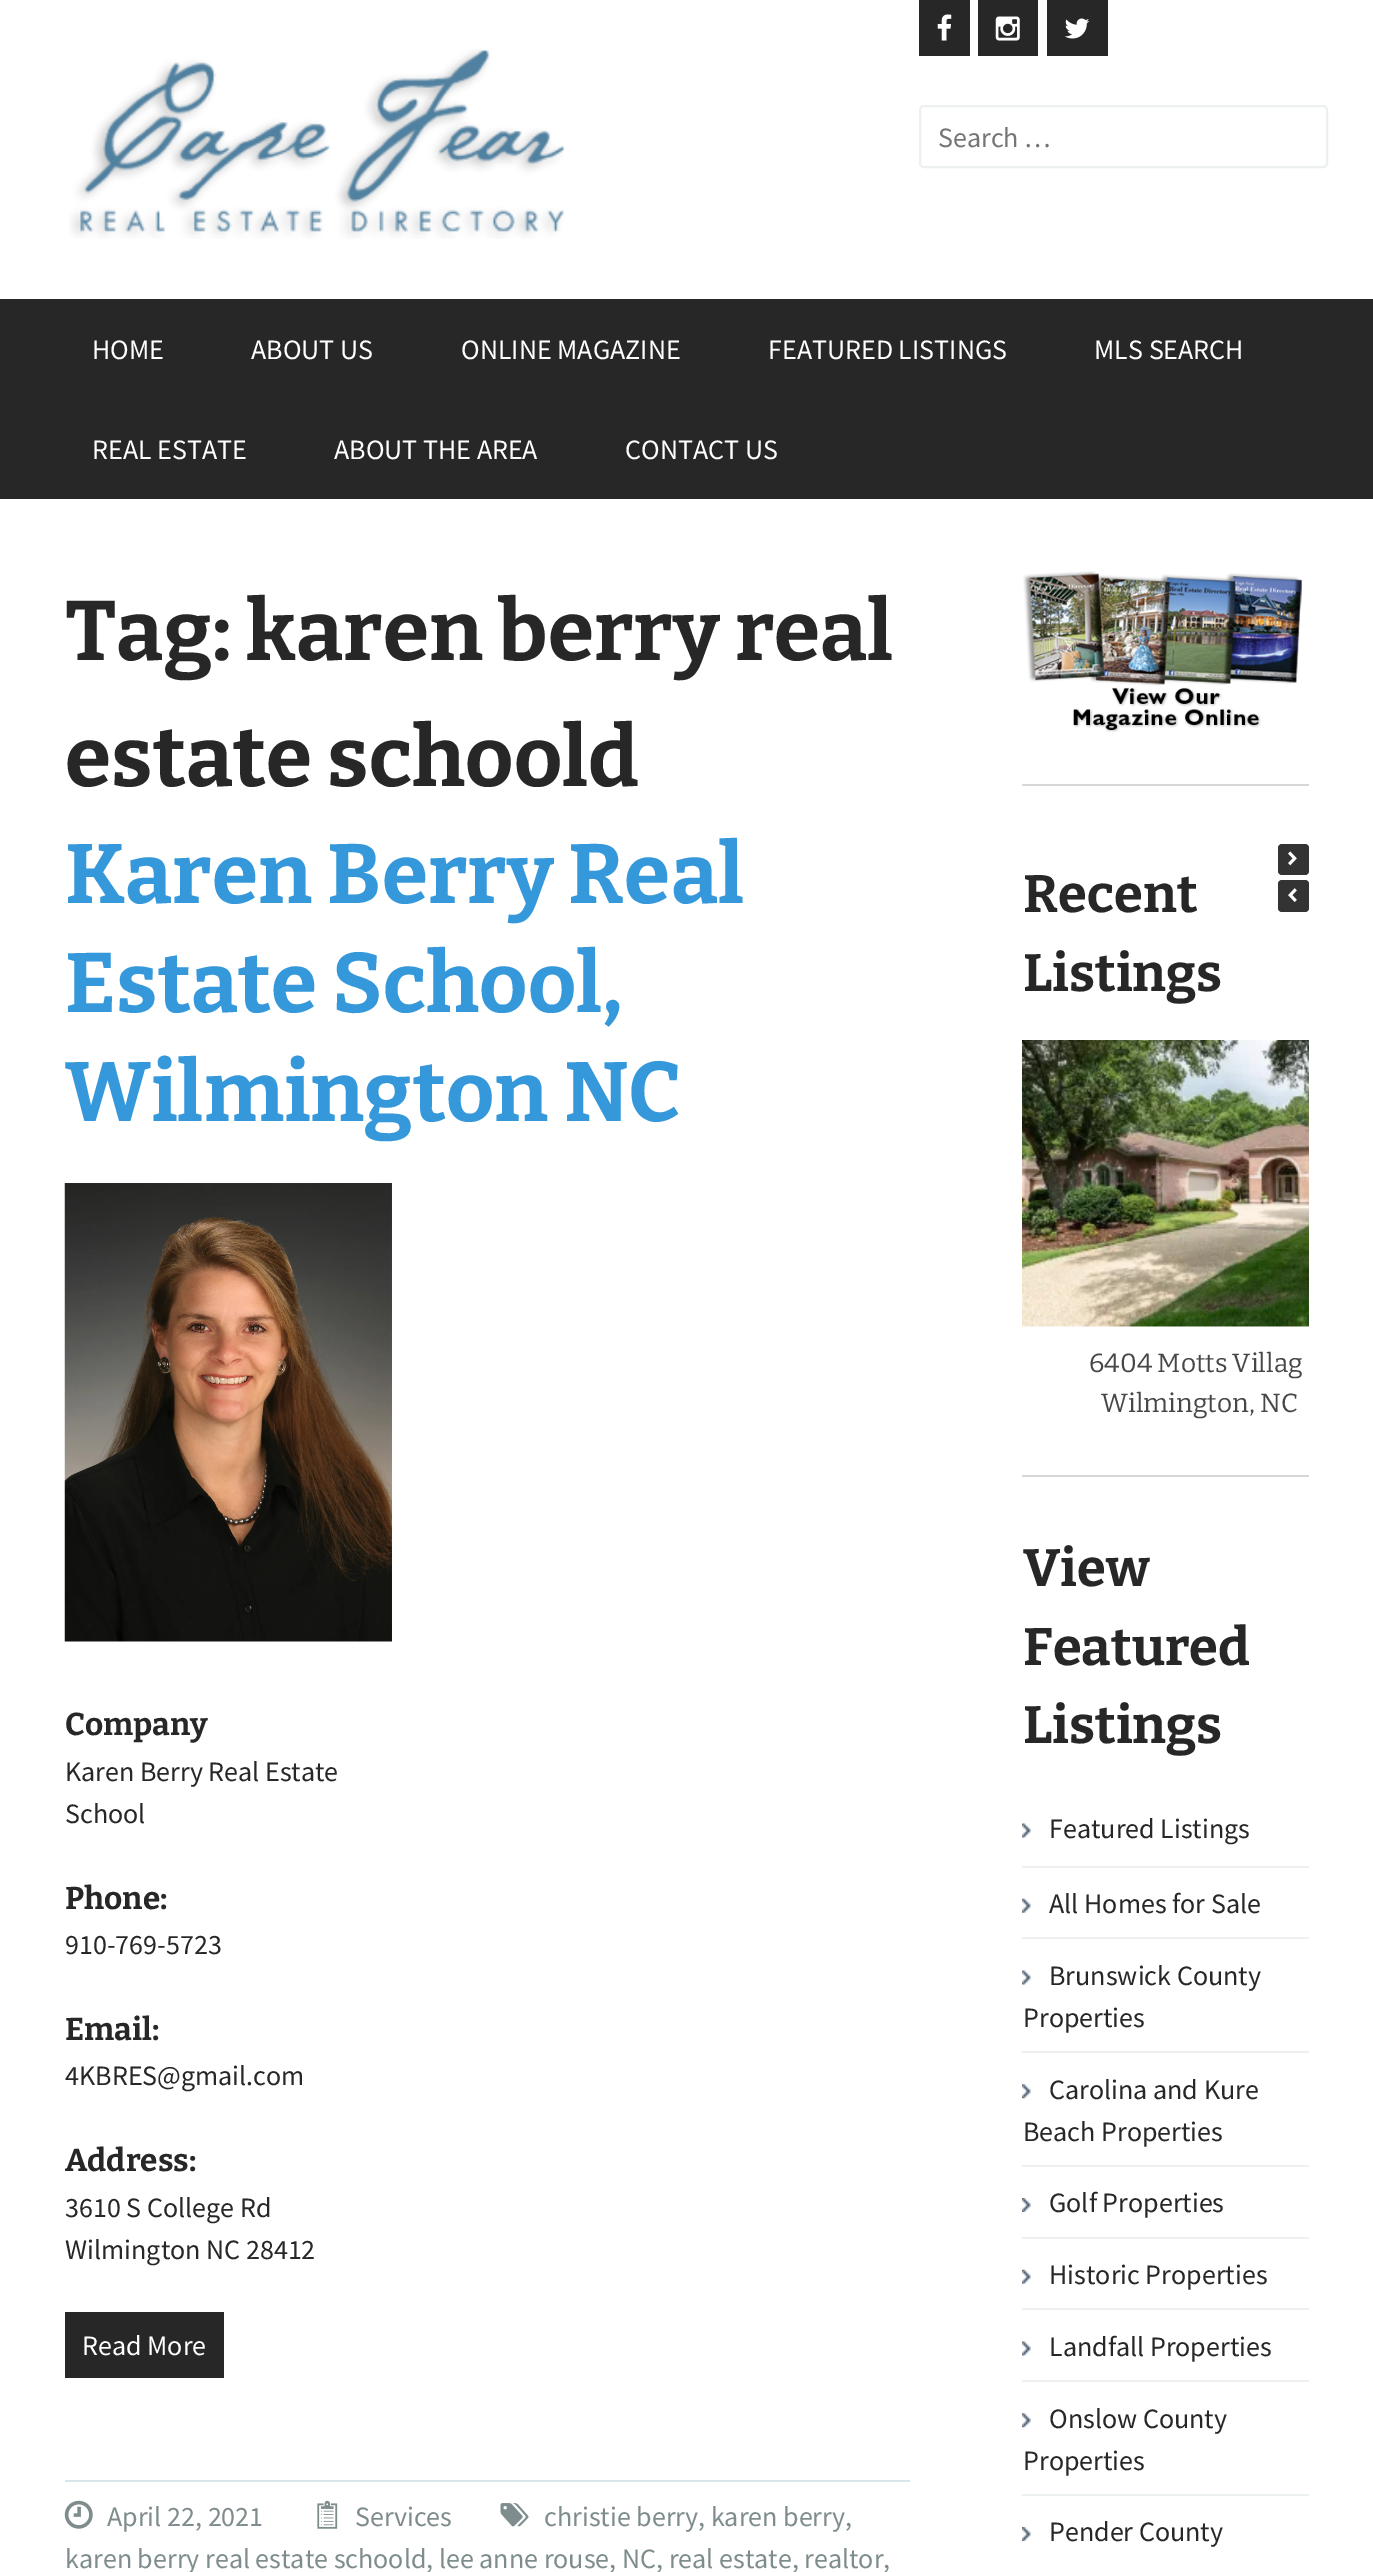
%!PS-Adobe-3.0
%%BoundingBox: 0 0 1373 2572
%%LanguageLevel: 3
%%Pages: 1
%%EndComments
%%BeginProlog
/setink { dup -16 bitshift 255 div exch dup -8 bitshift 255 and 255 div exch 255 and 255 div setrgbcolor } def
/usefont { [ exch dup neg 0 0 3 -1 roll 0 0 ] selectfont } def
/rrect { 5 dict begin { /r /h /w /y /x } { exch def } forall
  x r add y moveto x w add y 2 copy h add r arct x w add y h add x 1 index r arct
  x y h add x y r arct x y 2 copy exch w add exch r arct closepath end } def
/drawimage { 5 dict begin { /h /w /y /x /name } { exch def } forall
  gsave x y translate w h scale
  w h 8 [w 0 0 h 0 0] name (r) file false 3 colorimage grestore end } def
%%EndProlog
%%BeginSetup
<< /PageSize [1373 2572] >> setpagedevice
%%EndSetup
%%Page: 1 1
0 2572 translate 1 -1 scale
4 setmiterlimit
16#FFFFFF setink
0 0 1373 2572 rectfill
(img1.raw) 69 49 495 190 drawimage
16#272727 setink
919 0 51 56 rectfill
(img2.raw) 937 14 15 27 drawimage
978 0 60 56 rectfill
(img3.raw) 995 16 25 25 drawimage
1047 0 61 56 rectfill
(img4.raw) 1065 18 25 21 drawimage
16#ECF0F1 setink
2 setlinewidth
920 106 407 61 4 rrect stroke
/SourceSansPro-Regular 28 usefont
16#757575 setink
938 147 moveto (Search …) show
16#272727 setink
0 299 1373 200 rectfill
16#FFFFFF setink
[
    [(HOME) 92 359]
    [(ABOUT US) 251 359]
    [(ONLINE MAGAZINE) 461 359]
    [(FEATURED LISTINGS) 768 359]
    [(MLS SEARCH) 1094 359]
    [(REAL ESTATE) 92 459]
    [(ABOUT THE AREA) 334 459]
    [(CONTACT US) 625 459]
] { aload pop moveto show } forall
/Bitter-Bold 84 usefont
16#272727 setink
65 660 moveto (Tag: karen berry real) show
65 786 moveto (estate schoold) show
16#3498DB setink
[
    [(Karen Berry Real) 65 903]
    [(Estate School,) 65 1012]
    [(Wilmington NC) 65 1121]
] { aload pop moveto show } forall
(img5.raw) 64 1183 328 459 drawimage
/Bitter-Bold 31.5 usefont
16#272727 setink
65 1735 moveto (Company) show
/SourceSansPro-Regular 28 usefont
65 1781 moveto (Karen Berry Real Estate) show
65 1823 moveto (School) show
/Bitter-Bold 31.5 usefont
65 1909 moveto (Phone:) show
/SourceSansPro-Regular 28 usefont
65 1954 moveto (910-769-5723) show
/Bitter-Bold 31.5 usefont
65 2040 moveto (Email:) show
/SourceSansPro-Regular 28 usefont
65 2085 moveto (4KBRES@gmail.com) show
/Bitter-Bold 31.5 usefont
65 2171 moveto (Address:) show
/SourceSansPro-Regular 28 usefont
65 2217 moveto (3610 S College Rd) show
65 2259 moveto (Wilmington NC 28412) show
65 2312 159 66 rectfill
16#FFFFFF setink
82 2355 moveto (Read More) show
16#D6E6EA setink
65 2480 845 2 rectfill
(img6.raw) 64 2500 29 29 drawimage
16#7F8C8D setink
107 2526 moveto (April 22, 2021) show
(img7.raw) 317 2500 21 29 drawimage
355 2526 moveto (Services) show
(img8.raw) 500 2503 29 24 drawimage
544 2526 moveto (christie berry, karen berry,) show
65 2568 moveto (karen berry real estate schoold, lee anne rouse, NC, real estate, realtor,) show
(img9.raw) 1023 571 279 161 drawimage
16#D7D7D7 setink
1022 784 287 2 rectfill
/Bitter-Bold 52.5 usefont
16#272727 setink
1023 912 moveto (Recent) show
1023 991 moveto (Listings) show
16#333333 setink
1278 844 31 31 4 rrect fill
(img10.raw) 1288 851 9 15 drawimage
1278 880 31 32 4 rrect fill
(img11.raw) 1288 888 9 14 drawimage
(img12.raw) 1022 1040 287 287 drawimage
/Bitter-Thin 26.25 usefont
16#474747 setink
1089 1372 moveto (6404 Motts Villag) show
1101 1412 moveto (Wilmington, NC) show
16#D7D7D7 setink
1022 1475 287 2 rectfill
/Bitter-Bold 52.5 usefont
16#272727 setink
[
    [(View) 1023 1586]
    [(Featured) 1023 1665]
    [(Listings) 1023 1743]
] { aload pop moveto show } forall
(img13.raw) 1022 1823 9 15 drawimage
/SourceSansPro-Regular 28 usefont
1049 1838 moveto (Featured Listings) show
16#ECF0F1 setink
1022 1866 287 2 rectfill
1022 1937 287 2 rectfill
(img14.raw) 1022 1898 9 15 drawimage
16#272727 setink
1049 1913 moveto (All Homes for Sale) show
16#ECF0F1 setink
1022 2051 287 2 rectfill
(img13.raw) 1022 1970 9 15 drawimage
16#272727 setink
1049 1985 moveto (Brunswick County) show
1023 2027 moveto (Properties) show
16#ECF0F1 setink
1022 2165 287 2 rectfill
(img15.raw) 1022 2084 9 15 drawimage
16#272727 setink
1049 2099 moveto (Carolina and Kure) show
1023 2141 moveto (Beach Properties) show
16#ECF0F1 setink
1022 2237 287 2 rectfill
(img16.raw) 1022 2198 9 14 drawimage
16#272727 setink
1049 2212 moveto (Golf Properties) show
16#ECF0F1 setink
1022 2308 287 2 rectfill
(img14.raw) 1022 2269 9 15 drawimage
16#272727 setink
1049 2284 moveto (Historic Properties) show
16#ECF0F1 setink
1022 2380 287 2 rectfill
(img13.raw) 1022 2341 9 15 drawimage
16#272727 setink
1049 2356 moveto (Landfall Properties) show
16#ECF0F1 setink
1022 2494 287 2 rectfill
(img15.raw) 1022 2413 9 15 drawimage
16#272727 setink
1049 2428 moveto (Onslow County) show
1023 2470 moveto (Properties) show
(img16.raw) 1022 2527 9 14 drawimage
1049 2541 moveto (Pender County) show
showpage
%%EOF
